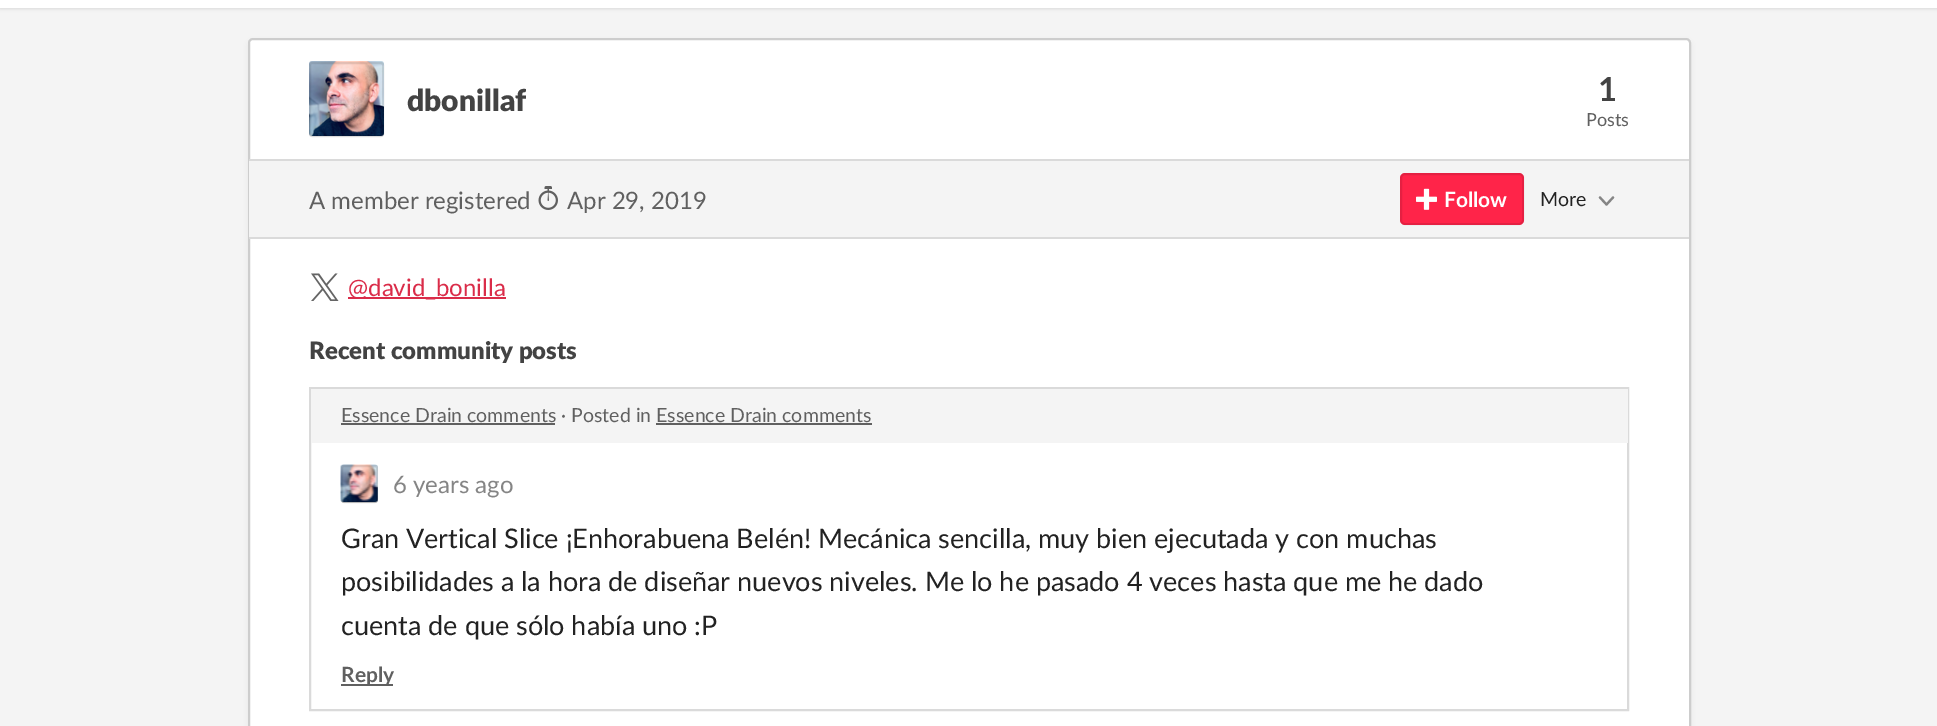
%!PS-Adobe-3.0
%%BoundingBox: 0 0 1937 726
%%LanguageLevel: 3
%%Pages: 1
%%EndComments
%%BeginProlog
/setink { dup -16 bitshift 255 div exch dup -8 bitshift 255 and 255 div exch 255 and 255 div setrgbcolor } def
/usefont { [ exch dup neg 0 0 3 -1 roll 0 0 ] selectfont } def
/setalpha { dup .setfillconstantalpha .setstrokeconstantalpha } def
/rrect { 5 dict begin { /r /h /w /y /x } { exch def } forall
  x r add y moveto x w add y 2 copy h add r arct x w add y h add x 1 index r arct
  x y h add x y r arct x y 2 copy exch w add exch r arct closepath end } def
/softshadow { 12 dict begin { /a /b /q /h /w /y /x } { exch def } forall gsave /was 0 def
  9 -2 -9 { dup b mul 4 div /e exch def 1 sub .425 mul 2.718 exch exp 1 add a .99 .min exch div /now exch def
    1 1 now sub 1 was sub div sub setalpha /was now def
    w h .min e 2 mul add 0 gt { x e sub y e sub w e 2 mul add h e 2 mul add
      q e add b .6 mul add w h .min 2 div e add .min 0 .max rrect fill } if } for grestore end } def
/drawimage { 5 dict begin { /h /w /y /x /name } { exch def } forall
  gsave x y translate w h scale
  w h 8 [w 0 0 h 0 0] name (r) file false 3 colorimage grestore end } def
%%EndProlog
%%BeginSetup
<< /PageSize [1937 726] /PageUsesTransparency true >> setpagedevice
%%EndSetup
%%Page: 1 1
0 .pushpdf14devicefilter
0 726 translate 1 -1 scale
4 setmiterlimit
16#F4F4F4 setink
0 0 1937 726 rectfill
16#000000 setink
0 -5 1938 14 0 1.5 0.1 softshadow
16#FFFFFF setink
0 0 1937 8 rectfill
16#000000 setink
248 41 1443 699 5 3 0.05 softshadow
16#FFFFFF setink
249 39 1441 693 4 rrect gsave fill grestore
16#CDCDCD setink
2 setlinewidth
stroke
16#DADADA setink
249 159 1440 2 rectfill
16#F4F4F4 setink
309 62 75 75 3 rrect fill
(img1.raw) 309 61 75 75 drawimage
0.1 setalpha
16#000000 setink
310 63 73 73 2 rrect stroke
/Lato-Black 30 usefont
1 setalpha
16#434343 setink
407 111 moveto (dbonillaf) show
/Lato-Bold 33 usefont
1598 101 moveto (1) show
/Lato-Regular 18 usefont
16#606060 setink
1586 126 moveto (Posts) show
16#F4F4F4 setink
249 161 1440 76 rectfill
16#DADADA setink
249 237 1440 2 rectfill
/Lato-Regular 24 usefont
16#606060 setink
309 209 moveto (A member registered) show
(img2.raw) 538 186 20 24 drawimage
567 209 moveto (Apr 29, 2019) show
16#FF2449 setink
1400 173 124 52 5 rrect fill
0.1 setalpha
16#000000 setink
1401 174 122 50 4 rrect stroke
1 setalpha
(img3.raw) 1416 188 21 22 drawimage
/Lato-Bold 21 usefont
16#FFFFFF setink
1444 207 moveto (Follow) show
/Lato-Regular 19.5 usefont
16#222222 setink
1540 206 moveto (More) show
16#858585 setink
2.2 setlinewidth
1 setlinecap
1 setlinejoin
1600 197.5 moveto 1606.5 204.5 lineto 1613 197.5 lineto stroke
(img4.raw) 311 273 28 28 drawimage
16#DA2C49 setink
348 297 158 2 rectfill
/Lato-Regular 24 usefont
348 296 moveto (@david_bonilla) show
/Lato-Black 24 usefont
16#434343 setink
309 359 moveto (Recent community posts) show
16#DADADA setink
2 setlinewidth
0 setlinecap
0 setlinejoin
310 388 1318 322 rectstroke
16#F4F4F4 setink
311 389 1317 54 rectfill
/Lato-Regular 19.5 usefont
16#606060 setink
341 422 moveto (Essence Drain comments · Posted in Essence Drain comments) show
341 423 214 2 rectfill
656 423 216 2 rectfill
16#CCCCCC setink
341 465 37 38 3 rrect fill
(img5.raw) 340 464 39 38 drawimage
0.1 setalpha
16#000000 setink
342 466 35 36 2 rrect stroke
0.95 setalpha
16#FFFFFF setink
15 setlinewidth
385.5 462.5 1220 43 rectstroke
/Lato-Regular 24 usefont
1 setalpha
16#858585 setink
393 493 moveto (6 years ago) show
/Lato-Regular 27 usefont
16#222222 setink
[
    [(Gran Vertical Slice ¡Enhorabuena Belén! Mecánica sencilla, muy bien ejecutada y con muchas) 341 548]
    [(posibilidades a la hora de diseñar nuevos niveles. Me lo he pasado 4 veces hasta que me he dado) 341 591]
    [(cuenta de que sólo había uno :P) 341 635]
] { aload pop moveto show } forall
16#606060 setink
341 684 52 2 rectfill
/Lato-Bold 21 usefont
341 682 moveto (Reply) show
.poppdf14devicefilter showpage
%%EOF
